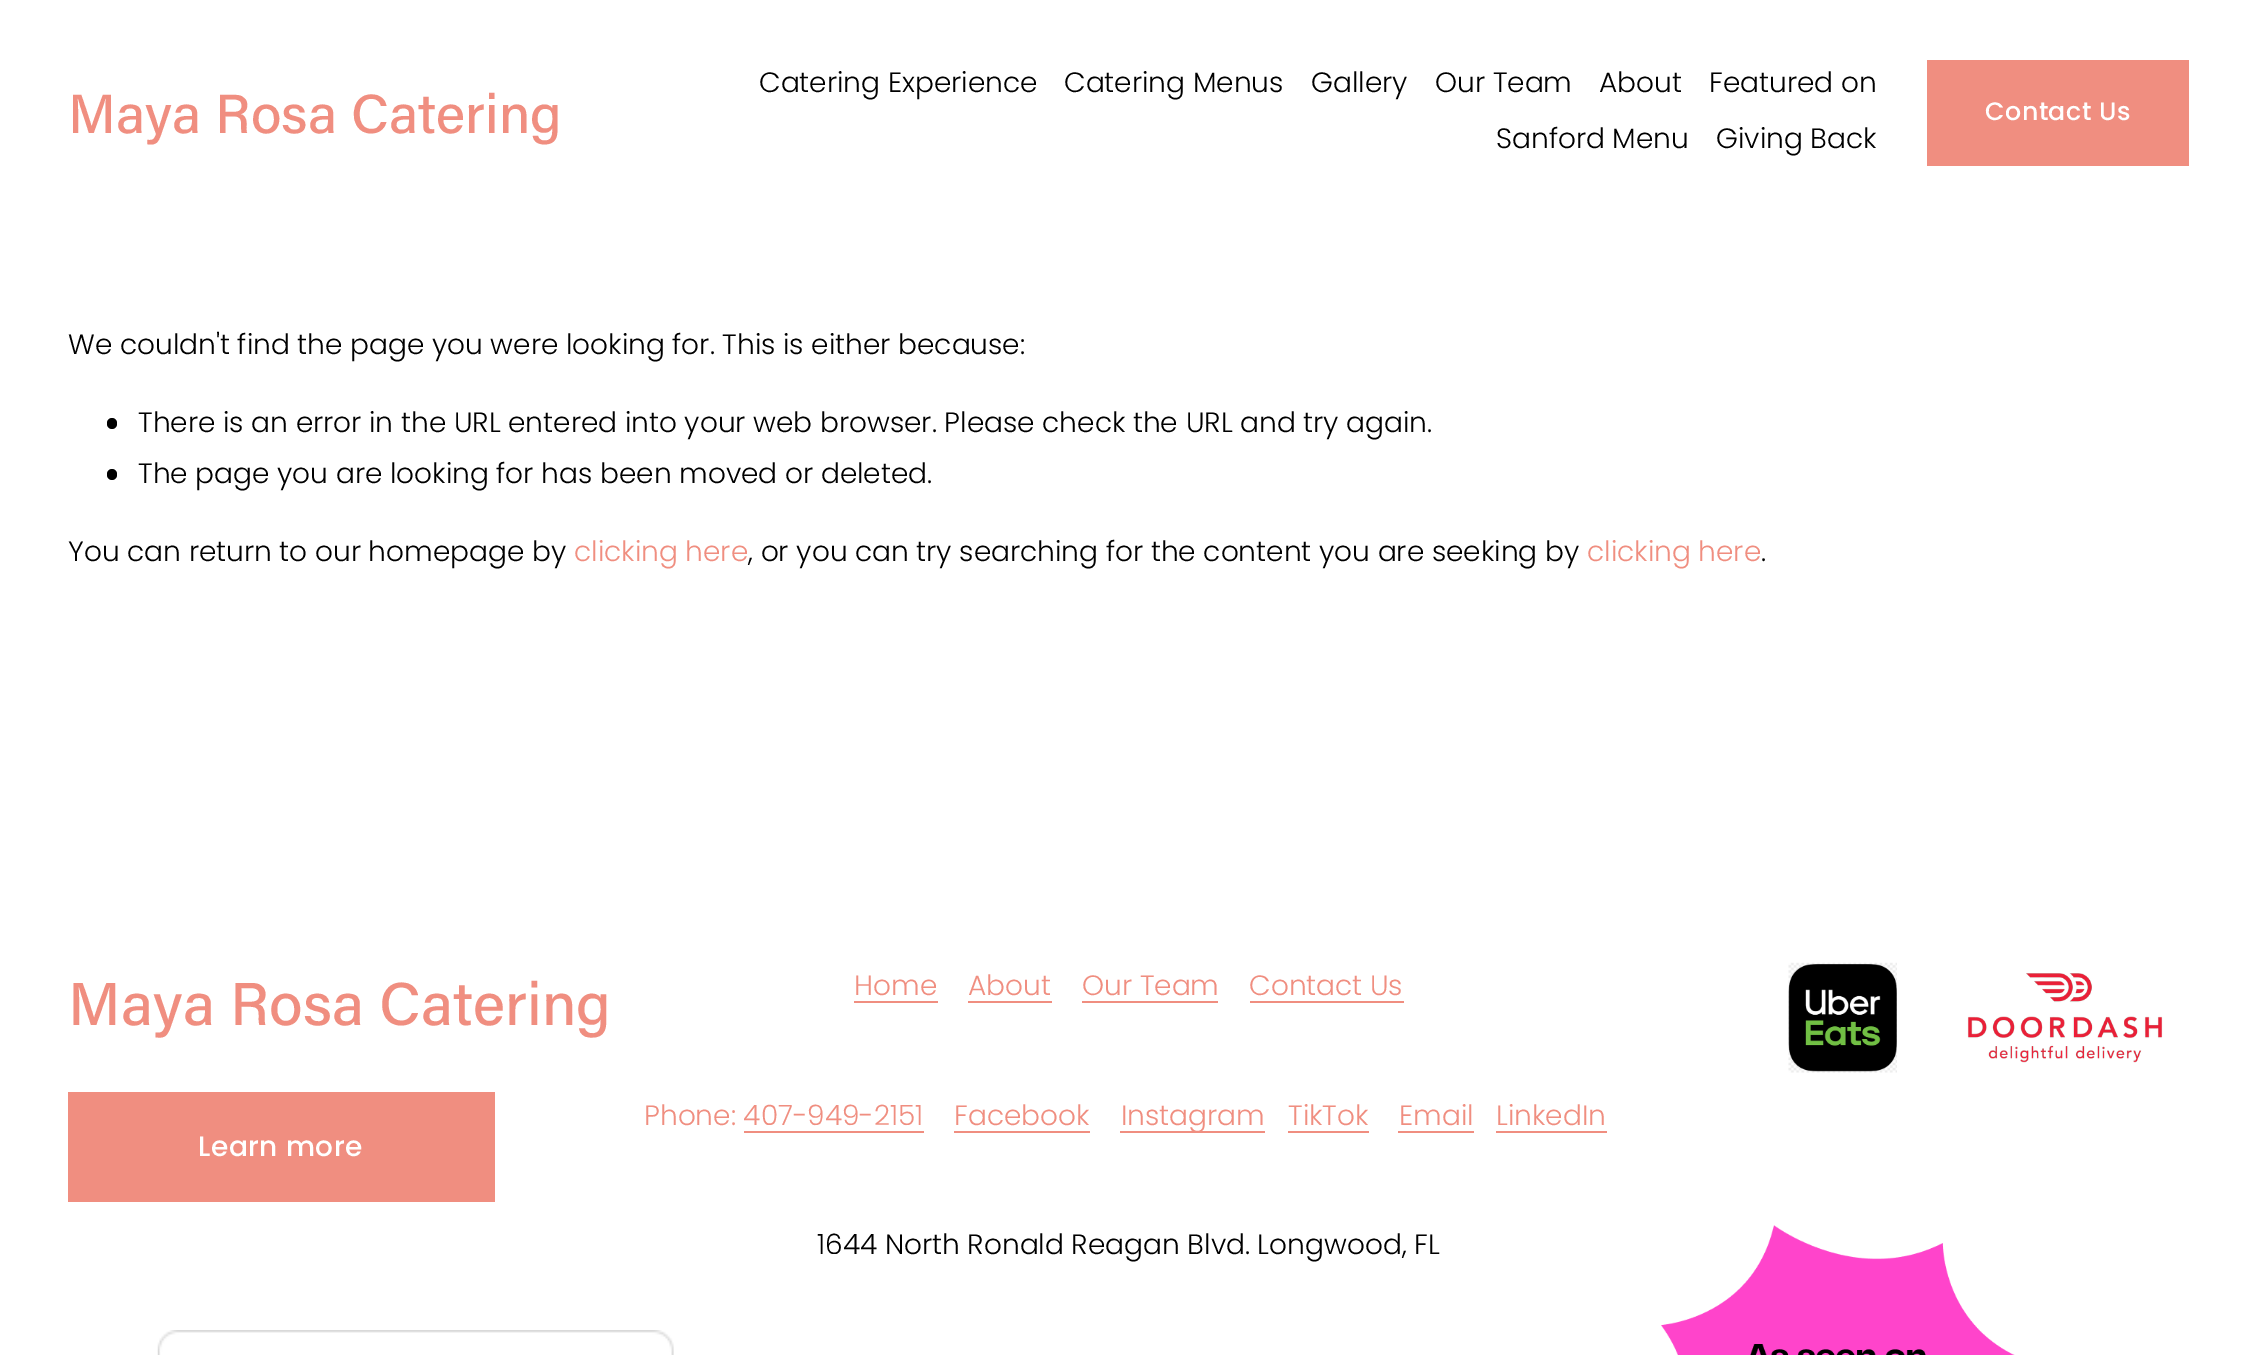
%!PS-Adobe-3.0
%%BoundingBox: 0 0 2256 1355
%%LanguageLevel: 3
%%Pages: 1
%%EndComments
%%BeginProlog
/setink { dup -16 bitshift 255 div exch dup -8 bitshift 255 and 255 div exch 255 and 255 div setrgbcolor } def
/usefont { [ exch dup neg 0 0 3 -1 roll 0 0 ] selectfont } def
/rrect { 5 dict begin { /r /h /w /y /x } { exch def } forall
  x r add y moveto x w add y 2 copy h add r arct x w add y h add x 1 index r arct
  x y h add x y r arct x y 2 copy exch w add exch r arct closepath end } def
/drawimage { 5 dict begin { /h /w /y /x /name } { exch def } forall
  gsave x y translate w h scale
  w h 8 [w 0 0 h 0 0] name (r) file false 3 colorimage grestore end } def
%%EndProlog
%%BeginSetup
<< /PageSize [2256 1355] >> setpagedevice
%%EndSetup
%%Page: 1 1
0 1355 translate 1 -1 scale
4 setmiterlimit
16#FFFFFF setink
0 0 2256 1355 rectfill
/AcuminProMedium-Medium 55 usefont
16#F08E80 setink
68 133 moveto (Maya Rosa Catering) show
/Poppins-Light 28 usefont
16#000000 setink
[
    [(Catering Experience) 759 92]
    [(Catering Menus) 1064 92]
    [(Gallery) 1311 92]
    [(Our Team) 1435 92]
    [(About) 1599 92]
    [(Featured on) 1709 92]
    [(Sanford Menu) 1496 148]
    [(Giving Back) 1716 148]
] { aload pop moveto show } forall
16#F08E80 setink
1927 60 262 106 rectfill
/Poppins-Medium 25.25 usefont
16#FFFFFF setink
1985 120 moveto 0.5 0 (Contact Us) ashow
/Poppins-Light 28 usefont
16#000000 setink
68 354 moveto (We couldn't find the page you were looking for. This is either because:) show
107 418 10 11 5 rrect fill
138 432 moveto (There is an error in the URL entered into your web browser. Please check the URL and try again.) show
107 469 10 11 5 rrect fill
138 483 moveto (The page you are looking for has been moved or deleted.) show
68 561 moveto (You can return to our homepage by) show
16#F08E80 setink
574 561 moveto (clicking here) show
16#000000 setink
748 561 moveto (, or you can try searching for the content you are seeking by) show
16#F08E80 setink
1587 561 moveto (clicking here) show
16#000000 setink
1761 561 moveto (.) show
/AcuminProMedium-Medium 60.5 usefont
16#F08E80 setink
68 1025 moveto (Maya Rosa Catering) show
/Poppins-Light 28 usefont
854 995 moveto (Home) show
854 1001 84 2 rectfill
968 995 moveto (About) show
968 1001 84 2 rectfill
1082 995 moveto (Our Team) show
1082 1001 136 2 rectfill
1249 995 moveto (Contact Us) show
1250 1001 154 2 rectfill
(img1.raw) 1788 962 109 111 drawimage
(img2.raw) 1967 973 196 90 drawimage
644 1125 moveto (Phone: 407-949-2151) show
954 1125 moveto (Facebook) show
954 1131 136 2 rectfill
1120 1131 145 2 rectfill
1121 1125 moveto (Instagram) show
1288 1125 moveto (TikTok) show
1288 1131 81 2 rectfill
1399 1125 moveto (Email) show
1398 1131 76 2 rectfill
1496 1125 moveto (LinkedIn) show
[
    [1496 1131 111 2 16#F08E80]
    [744 1131 180 2 16#F08E80]
    [68 1092 427 110 16#F08E80]
] { aload pop setink rectfill } forall
/Poppins-Medium 28 usefont
16#FFFFFF setink
198 1156 moveto 0.5 0 (Learn more) ashow
/Poppins-Light 28 usefont
16#000000 setink
817 1254 moveto (1644 North Ronald Reagan Blvd. Longwood, FL) show
(img3.raw) 1661 1225 354 130 drawimage
(img4.raw) 157 1330 517 25 drawimage
showpage
%%EOF
